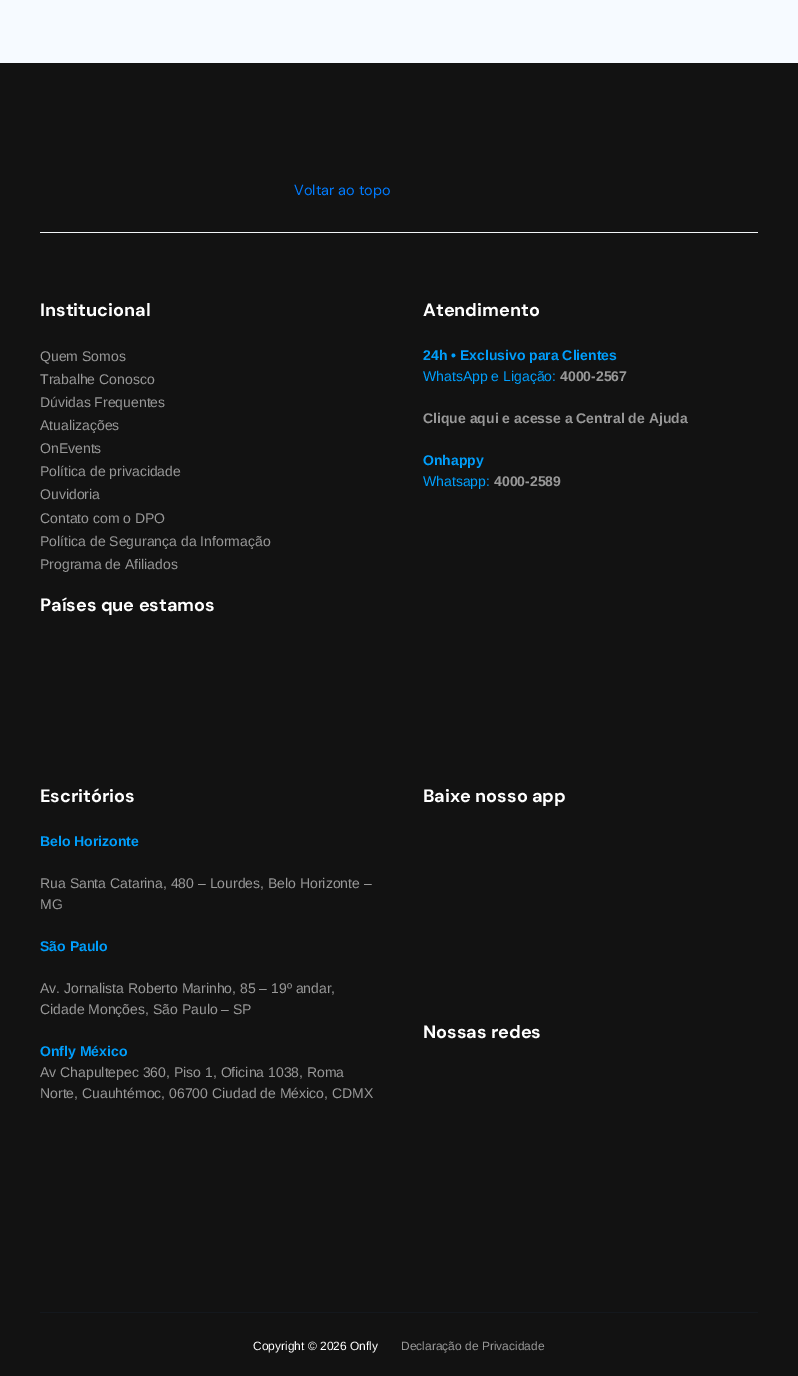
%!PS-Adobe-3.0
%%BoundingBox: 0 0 798 1376
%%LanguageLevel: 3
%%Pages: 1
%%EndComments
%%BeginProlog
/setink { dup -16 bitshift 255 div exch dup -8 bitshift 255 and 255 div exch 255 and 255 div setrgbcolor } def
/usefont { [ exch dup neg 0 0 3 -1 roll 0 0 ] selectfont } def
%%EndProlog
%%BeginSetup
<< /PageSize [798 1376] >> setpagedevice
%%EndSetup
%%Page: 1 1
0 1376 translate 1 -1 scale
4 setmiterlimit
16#121212 setink
0 0 798 1376 rectfill
16#F6FAFF setink
0 0 798 63 rectfill
16#F2F5F7 setink
40 232 718 1 rectfill
/DMSans-Regular 14.5 usefont
16#007BFF setink
294 195 moveto (Voltar ao topo) show
/DMSans-Bold 18 usefont
16#FFFFFF setink
40 316 moveto (Institucional) show
/LiberationSans-Regular 14 usefont
16#989898 setink
[
    [(Quem Somos) 40 361]
    [(Trabalhe Conosco) 40 384]
    [(Dúvidas Frequentes) 40 407]
    [(Atualizações) 40 430]
    [(OnEvents) 40 453]
    [(Política de privacidade) 40 476]
    [(Ouvidoria) 40 499]
    [(Contato com o DPO) 40 523]
    [(Política de Segurança da Informação) 40 546]
    [(Programa de Afiliados) 40 569]
] { aload pop moveto show } forall
/DMSans-Bold 18 usefont
16#FFFFFF setink
40 611 moveto (Países que estamos) show
423 316 moveto (Atendimento) show
/LiberationSans-Bold 14 usefont
16#009EFB setink
423 360 moveto (24h • Exclusivo para Clientes) show
/LiberationSans-Regular 14 usefont
423 381 moveto (WhatsApp e Ligação:) show
/LiberationSans-Bold 14 usefont
16#989898 setink
560 381 moveto (4000-2567) show
423 423 moveto (Clique aqui e acesse a Central de Ajuda) show
16#009EFB setink
423 465 moveto (Onhappy) show
/LiberationSans-Regular 14 usefont
423 486 moveto (Whatsapp:) show
/LiberationSans-Bold 14 usefont
16#989898 setink
494 486 moveto (4000-2589) show
/DMSans-Bold 18 usefont
16#FFFFFF setink
40 802 moveto (Escritórios) show
/LiberationSans-Bold 14 usefont
16#009EFB setink
40 846 moveto (Belo Horizonte) show
/LiberationSans-Regular 14 usefont
16#989898 setink
40 888 moveto (Rua Santa Catarina, 480 – Lourdes, Belo Horizonte –) show
40 909 moveto (MG) show
/LiberationSans-Bold 14 usefont
16#009EFB setink
40 951 moveto (São Paulo) show
/LiberationSans-Regular 14 usefont
16#989898 setink
40 993 moveto (Av. Jornalista Roberto Marinho, 85 – 19º andar,) show
40 1014 moveto (Cidade Monções, São Paulo – SP) show
/LiberationSans-Bold 14 usefont
16#009EFB setink
40 1056 moveto (Onfly México) show
/LiberationSans-Regular 14 usefont
16#989898 setink
40 1077 moveto (Av Chapultepec 360, Piso 1, Oficina 1038, Roma) show
40 1098 moveto (Norte, Cuauhtémoc, 06700 Ciudad de México, CDMX) show
/DMSans-Bold 18 usefont
16#FFFFFF setink
423 802 moveto (Baixe nosso app) show
423 1038 moveto (Nossas redes) show
16#14181D setink
40 1312 718 1 rectfill
/LiberationSans-Regular 12 usefont
16#FFFFFF setink
253 1350 moveto (Copyright © 2026 Onfly) show
16#989898 setink
401 1350 moveto (Declaração de Privacidade) show
showpage
%%EOF
